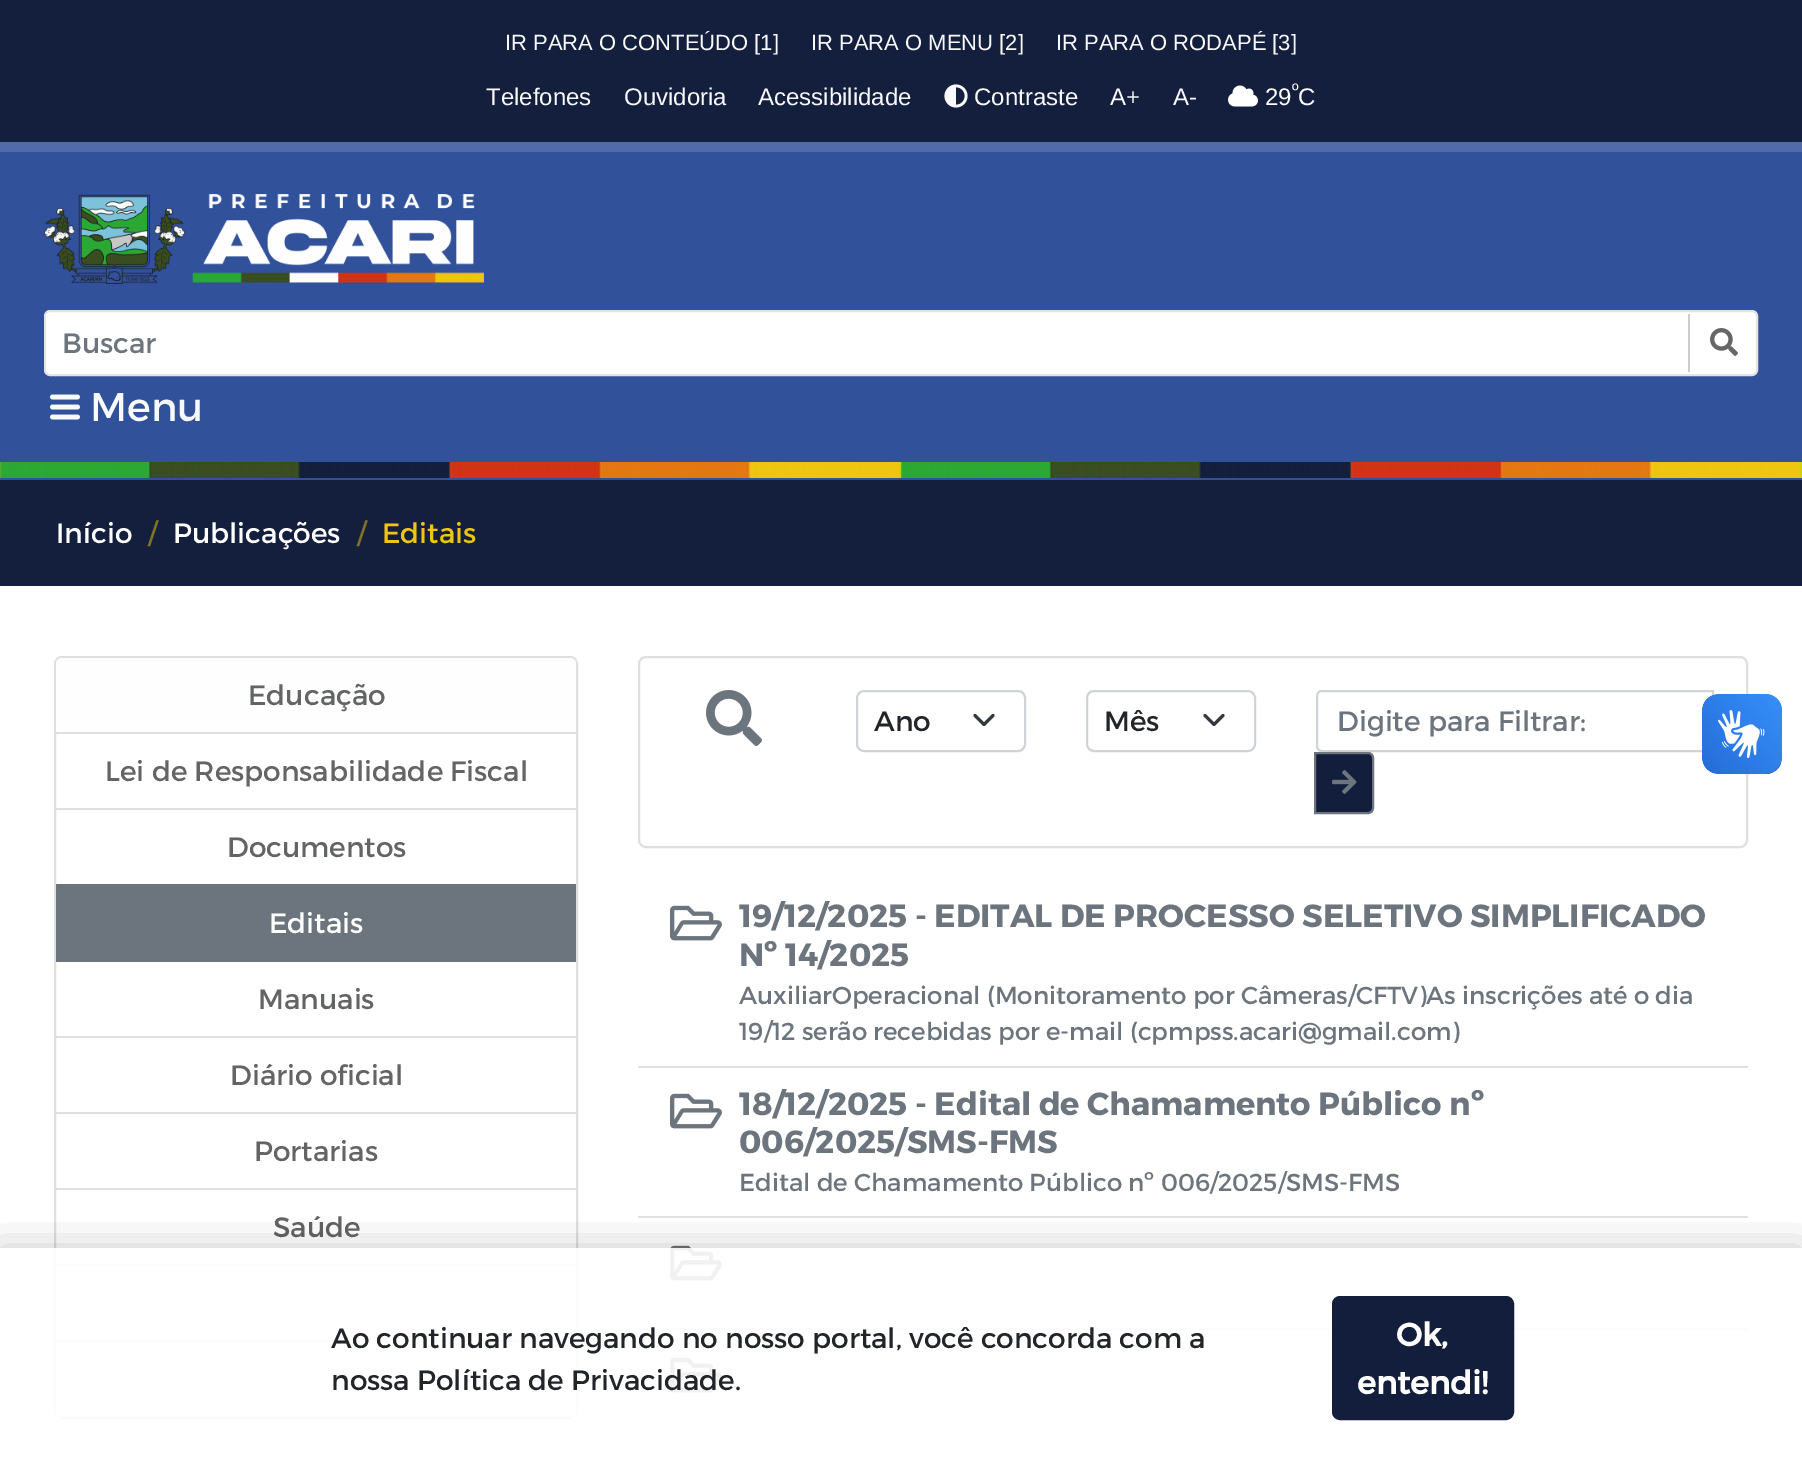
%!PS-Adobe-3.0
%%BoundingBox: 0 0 1802 1468
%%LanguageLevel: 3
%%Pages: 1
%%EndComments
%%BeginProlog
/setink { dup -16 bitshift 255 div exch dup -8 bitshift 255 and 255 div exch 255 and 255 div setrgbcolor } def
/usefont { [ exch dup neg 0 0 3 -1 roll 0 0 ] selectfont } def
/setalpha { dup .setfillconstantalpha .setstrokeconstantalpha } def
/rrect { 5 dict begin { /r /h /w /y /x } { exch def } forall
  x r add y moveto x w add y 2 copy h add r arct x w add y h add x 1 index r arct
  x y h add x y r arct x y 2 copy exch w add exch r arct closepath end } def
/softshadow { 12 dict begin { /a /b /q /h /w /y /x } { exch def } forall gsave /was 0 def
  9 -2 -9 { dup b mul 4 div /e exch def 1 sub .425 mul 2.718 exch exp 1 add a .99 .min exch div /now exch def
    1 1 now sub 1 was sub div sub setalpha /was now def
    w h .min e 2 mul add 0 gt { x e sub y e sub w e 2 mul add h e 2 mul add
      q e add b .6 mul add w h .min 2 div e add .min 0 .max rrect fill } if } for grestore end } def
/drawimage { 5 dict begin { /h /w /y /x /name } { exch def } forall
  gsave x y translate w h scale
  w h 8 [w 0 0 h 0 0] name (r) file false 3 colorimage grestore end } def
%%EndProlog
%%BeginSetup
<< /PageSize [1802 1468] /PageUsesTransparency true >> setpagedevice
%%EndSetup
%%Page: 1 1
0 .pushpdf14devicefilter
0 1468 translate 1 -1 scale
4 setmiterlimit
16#FFFFFF setink
0 0 1802 1468 rectfill
16#131F3C setink
0 0 1802 142 rectfill
/LiberationSans-Regular 22 usefont
16#F8F9FA setink
[
    [(IR PARA O CONTEÚDO [1]) 505 50]
    [(IR PARA O MENU [2]) 811 50]
    [(IR PARA O RODAPÉ [3]) 1056 50]
] { aload pop moveto show } forall
/LiberationSans-Regular 24 usefont
[
    [(Telefones) 486 105]
    [(Ouvidoria) 624 105]
    [(Acessibilidade) 758 105]
] { aload pop moveto show } forall
(img1.raw) 944 84 24 24 drawimage
[
    [(Contraste) 974 105]
    [(A+) 1110 105]
    [(A-) 1173 105]
] { aload pop moveto show } forall
(img2.raw) 1228 85 30 22 drawimage
/LiberationSans-Regular 18 usefont
16#FFFFFF setink
1292 96 moveto (º) show
/LiberationSans-Regular 24 usefont
1265 105 moveto (29 C) show
16#32519B setink
0 152 1802 328 rectfill
(img3.raw) 0 462 1802 16 drawimage
16#516BAA setink
0 142 1802 10 rectfill
(img4.raw) 44 194 440 90 drawimage
16#FFFFFF setink
45 311 1712 64 5 rrect gsave fill grestore
16#E4E4E4 setink
2 setlinewidth
stroke
16#FFFFFF setink
46 314 1 58 rectfill
/Montserrat-Regular 28 usefont
16#6C757D setink
62 353 moveto (Buscar) show
16#CCCCCC setink
1688 314 2 58 rectfill
(img5.raw) 1710 328 28 28 drawimage
(img6.raw) 50 394 30 26 drawimage
/Montserrat-Regular 40 usefont
16#F8F9FA setink
90 421 moveto (Menu) show
16#131F3C setink
0 480 1802 106 rectfill
/Montserrat-Regular 28 usefont
16#FFFFFF setink
56 543 moveto (Início) show
16#817227 setink
148 543 moveto (/) show
16#FFFFFF setink
173 543 moveto (Publicações) show
16#817227 setink
357 543 moveto (/) show
16#EEC511 setink
382 543 moveto (Editais) show
16#DFDFDF setink
55 657 522 760 7 rrect stroke
16#FEFEFE setink
62 658 moveto 570 658 lineto 573.5 658 576 660.5 576 664 curveto 576 734 lineto 56 734 lineto 56 664 lineto 56 660.5 58.5 658 62 658 curveto closepath fill
16#DEDEDE setink
56 732 520 2 rectfill
16#636464 setink
248 705 moveto (Educação) show
16#DFDFDF setink
56 808 520 2 rectfill
16#636464 setink
105 781 moveto (Lei de Responsabilidade Fiscal) show
227 857 moveto (Documentos) show
16#6C757D setink
56 884 520 78 rectfill
16#FFFFFF setink
269 933 moveto (Editais) show
16#DFDFDF setink
56 1036 520 2 rectfill
16#636464 setink
258 1009 moveto (Manuais) show
16#DFDFDF setink
56 1112 520 2 rectfill
16#636464 setink
230 1085 moveto (Diário oficial) show
16#DFDFDF setink
56 1188 520 2 rectfill
16#636464 setink
254 1161 moveto (Portarias) show
16#DFDFDF setink
56 1264 520 2 rectfill
16#636464 setink
273 1237 moveto (Saúde) show
16#DFDFDF setink
56 1340 520 2 rectfill
16#FEFEFE setink
56 1342 moveto 576 1342 lineto 576 1410 lineto 576 1413.5 573.5 1416 570 1416 curveto 62 1416 lineto 58.5 1416 56 1413.5 56 1410 curveto closepath fill
16#DFDFDF setink
639 657 1108 190 7 rrect stroke
(img7.raw) 706 690 56 56 drawimage
16#343A40 setink
3 setlinewidth
1 setlinecap
1 setlinejoin
975 715.5 moveto 984 724.5 lineto 993 715.5 lineto stroke
16#CED4DA setink
2 setlinewidth
0 setlinecap
0 setlinejoin
857 691 168 60 7 rrect stroke
16#212529 setink
874 731 moveto (Ano) show
16#343A40 setink
3 setlinewidth
1 setlinecap
1 setlinejoin
1205 715.5 moveto 1214 724.5 lineto 1223 715.5 lineto stroke
16#CED4DA setink
2 setlinewidth
0 setlinecap
0 setlinejoin
1087 691 168 60 7 rrect stroke
16#212529 setink
1104 731 moveto (Mês) show
16#CED4DA setink
1322 691 moveto 1713 691 lineto 1713 751 lineto 1322 751 lineto 1319 751 1317 749 1317 746 curveto 1317 696 lineto 1317 693 1319 691 1322 691 curveto closepath stroke
16#6C757D setink
1337 731 moveto (Digite para Filtrar:) show
16#121E3B setink
1315 753 moveto 1368 753 lineto 1371 753 1373 755 1373 758 curveto 1373 808 lineto 1373 811 1371 813 1368 813 curveto 1315 813 lineto closepath gsave fill grestore
16#6C757D setink
stroke
(img8.raw) 1332 770 25 24 drawimage
16#DFDFDF setink
638 1066 1110 2 rectfill
(img9.raw) 670 905 52 36 drawimage
/Montserrat-Bold 32 usefont
16#6C757D setink
739 927 moveto (19/12/2025 - EDITAL DE PROCESSO SELETIVO SIMPLIFICADO) show
739 966 moveto (Nº 14/2025) show
/Montserrat-Regular 24.5 usefont
739 1004 moveto (AuxiliarOperacional \(Monitoramento por Câmeras/CFTV\)As inscrições até o dia) show
739 1040 moveto (19/12 serão recebidas por e-mail \(cpmpss.acari@gmail.com\)) show
16#DFDFDF setink
638 1216 1110 2 rectfill
(img9.raw) 670 1093 52 36 drawimage
/Montserrat-Bold 32 usefont
16#6C757D setink
739 1115 moveto (18/12/2025 - Edital de Chamamento Público nº) show
739 1153 moveto (006/2025/SMS-FMS) show
/Montserrat-Regular 24.5 usefont
739 1191 moveto (Edital de Chamamento Público nº 006/2025/SMS-FMS) show
16#DFDFDF setink
638 1328 1110 2 rectfill
(img9.raw) 670 1245 52 36 drawimage
(img9.raw) 670 1357 52 36 drawimage
(img10.raw) 1702 694 80 80 drawimage
(img11.raw) 1702 694 80 80 drawimage
gsave
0 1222 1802 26 rectclip
16#000000 setink
0 1248 1802 220 0 20 0.2 softshadow
grestore
0.9 setalpha
16#FFFFFF setink
54 1248 1694 170 rectfill
/Montserrat-Regular 28 usefont
1 setalpha
16#212529 setink
331 1348 moveto (Ao continuar navegando no nosso portal, você concorda com a) show
331 1390 moveto (nossa Política de Privacidade.) show
16#121E3B setink
1333 1297 180 122 7 rrect gsave fill grestore
stroke
/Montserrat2-Bold 32 usefont
16#FFFFFF setink
1396 1346 moveto (Ok,) show
1357 1394 moveto (entendi!) show
.poppdf14devicefilter showpage
%%EOF
